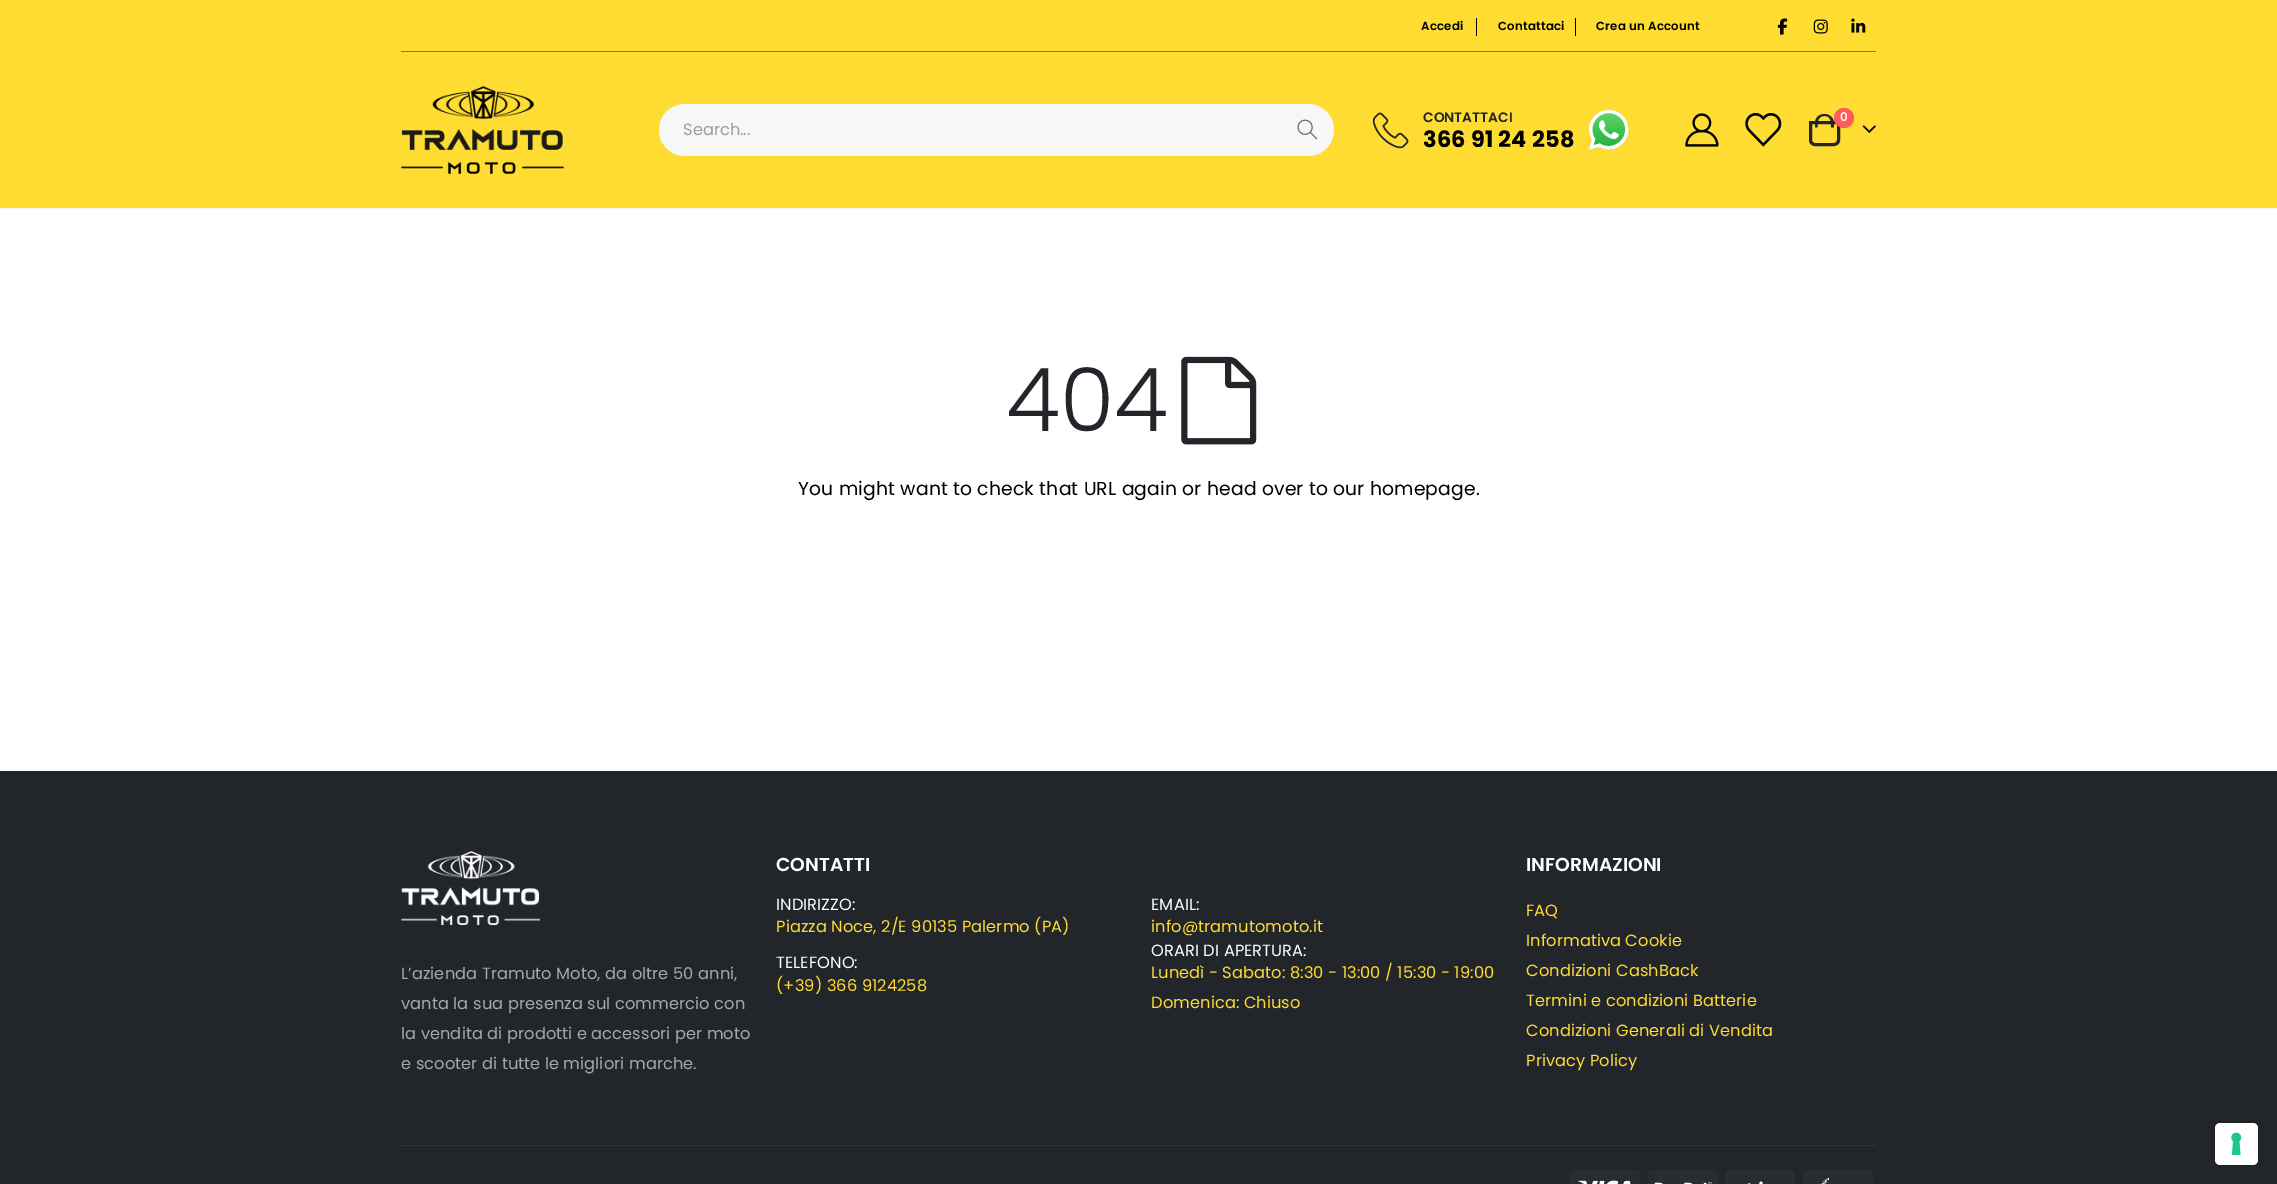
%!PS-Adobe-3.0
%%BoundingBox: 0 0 2277 1184
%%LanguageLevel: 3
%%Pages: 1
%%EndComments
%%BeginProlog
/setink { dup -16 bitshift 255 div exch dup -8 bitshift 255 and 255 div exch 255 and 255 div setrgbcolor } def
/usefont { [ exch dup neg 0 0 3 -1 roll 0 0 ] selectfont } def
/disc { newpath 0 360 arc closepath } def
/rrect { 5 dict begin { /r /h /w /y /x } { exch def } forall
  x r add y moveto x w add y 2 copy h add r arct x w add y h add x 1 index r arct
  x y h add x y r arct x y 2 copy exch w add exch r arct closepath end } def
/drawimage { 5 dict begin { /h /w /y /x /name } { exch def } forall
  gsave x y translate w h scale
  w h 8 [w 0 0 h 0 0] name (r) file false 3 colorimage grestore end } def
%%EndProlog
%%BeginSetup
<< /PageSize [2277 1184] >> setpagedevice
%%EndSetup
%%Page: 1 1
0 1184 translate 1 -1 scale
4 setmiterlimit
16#FFFFFF setink
0 0 2277 1184 rectfill
16#FEDC32 setink
0 0 2277 208 rectfill
16#F4F4F4 setink
0 208 2277 1 rectfill
/Poppins-SemiBold 11.75 usefont
16#000000 setink
1421 30 moveto 0.25 0 (Accedi) ashow
1476 18 1 18 rectfill
1498 30 moveto 0.25 0 (Contattaci) ashow
1575 18 1 18 rectfill
1596 30 moveto 0.25 0 (Crea un Account) ashow
16#FEDF44 setink
1729 16 1 20 rectfill
(img1.raw) 1777 18 11 17 drawimage
(img2.raw) 1813 19 15 15 drawimage
(img3.raw) 1851 18 15 15 drawimage
16#777777 setink
401 51 1475 1 rectfill
(img4.raw) 401 86 163 88 drawimage
16#F7F7F7 setink
659 104 675 52 26 rrect fill
/Poppins-Regular 16.25 usefont
16#9D9D9D setink
683 135 moveto (Search...) show
(img5.raw) 1297 119 21 21 drawimage
(img6.raw) 1372 112 37 37 drawimage
/Poppins-SemiBold 13.75 usefont
16#222529 setink
1423 122 moveto (CONTATTACI) show
/Poppins-Bold 22.5 usefont
16#000000 setink
1423 147 moveto 0.18 0 (366 91 24 258) ashow
(img7.raw) 1589 110 40 40 drawimage
(img8.raw) 1685 113 34 34 drawimage
(img9.raw) 1745 113 37 34 drawimage
16#222529 setink
3 setlinewidth
1810.5 122.5 moveto 1838.5 122.5 lineto 1838.5 140 lineto 1838.5 142.5 1836.5 144.5 1834 144.5 curveto 1815 144.5 lineto 1812.5 144.5 1810.5 142.5 1810.5 140 curveto closepath stroke
1824.5 114 moveto 1829.5 114 1834 118 1834 123 curveto 1834 127.5 lineto 1815 127.5 lineto 1815 123 lineto 1815 118 1819 114 1824.5 114 curveto closepath 1824.5 116 moveto 1831.5 116 1831 122.5 1831 127.5 curveto 1817.5 127.5 lineto 1817.5 122.5 1817.5 116 1824.5 116 curveto closepath eofill
16#FF5B5B setink
1844 118 10 disc fill
/Poppins-SemiBold 12 usefont
16#FFFFFF setink
1840 121 moveto (0) show
(img10.raw) 1862 125 14 8 drawimage
/Poppins-Light 88 usefont
16#222529 setink
1006 431 moveto (404) show
(img11.raw) 1181 356 76 89 drawimage
/Poppins-Regular 18.75 usefont
16#000000 setink
798 495 moveto 0.18 0 (You might want to check that URL again or head over to our homepage.) ashow
16#222529 setink
0 771 2277 413 rectfill
/Poppins-SemiBold 18.75 usefont
16#FFFFFF setink
776 871 moveto (CONTATTI) show
/Poppins-Regular 16.25 usefont
776 910 moveto 0.1 0 (INDIRIZZO:) ashow
16#FEDC32 setink
776 932 moveto 0.1 0 (Piazza Noce, 2/E 90135 Palermo \(PA\)) ashow
16#FFFFFF setink
776 968 moveto 0.1 0 (TELEFONO:) ashow
16#FEDC32 setink
776 991 moveto 0.1 0 (\(+39\) 366 9124258) ashow
16#FFFFFF setink
1151 910 moveto 0.1 0 (EMAIL:) ashow
16#FEDC32 setink
1151 932 moveto 0.1 0 (info@tramutomoto.it) ashow
16#FFFFFF setink
1151 956 moveto 0.1 0 (ORARI DI APERTURA:) ashow
16#FEDC32 setink
1151 978 moveto 0.1 0 (Lunedì - Sabato: 8:30 - 13:00 / 15:30 - 19:00) ashow
1151 1008 moveto 0.1 0 (Domenica: Chiuso) ashow
/Poppins-SemiBold 18.75 usefont
16#FFFFFF setink
1526 871 moveto (INFORMAZIONI) show
/Poppins-Regular 16.25 usefont
16#FEDC32 setink
1526 916 moveto 0.1 0 (FAQ) ashow
1526 946 moveto 0.1 0 (Informativa Cookie) ashow
1526 976 moveto 0.1 0 (Condizioni CashBack) ashow
1526 1006 moveto 0.1 0 (Termini e condizioni Batterie) ashow
1526 1036 moveto 0.1 0 (Condizioni Generali di Vendita) ashow
1526 1066 moveto 0.1 0 (Privacy Policy) ashow
(img12.raw) 401 851 139 74 drawimage
16#A8A8A8 setink
401 979 moveto 0.1 0 (L’azienda Tramuto Moto, da oltre 50 anni,) ashow
401 1009 moveto 0.1 0 (vanta la sua presenza sul commercio con) ashow
401 1039 moveto 0.1 0 (la vendita di prodotti e accessori per moto) ashow
401 1069 moveto 0.1 0 (e scooter di tutte le migliori marche.) ashow
16#313438 setink
401 1145 1475 1 rectfill
16#292C33 setink
1570 1170 70 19 5 rrect fill
(img13.raw) 1578 1180 53 4 drawimage
1648 1170 70 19 5 rrect fill
(img14.raw) 1654 1181 58 3 drawimage
1725 1170 70 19 5 rrect fill
(img15.raw) 1747 1181 16 3 drawimage
1803 1170 70 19 5 rrect fill
(img16.raw) 1821 1178 8 6 drawimage
16#1D1F23 setink
1 setlinewidth
2214.5 1121.5 44 44 5.5 rrect stroke
16#FFFFFF setink
2215 1123 43 42 5 rrect fill
(img17.raw) 2231 1132 11 23 drawimage
showpage
%%EOF
